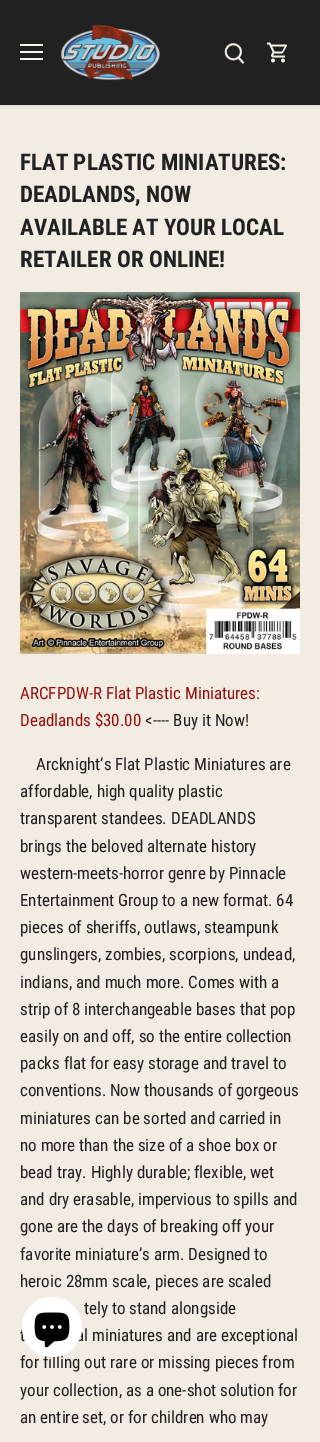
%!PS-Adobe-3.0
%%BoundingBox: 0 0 320 1442
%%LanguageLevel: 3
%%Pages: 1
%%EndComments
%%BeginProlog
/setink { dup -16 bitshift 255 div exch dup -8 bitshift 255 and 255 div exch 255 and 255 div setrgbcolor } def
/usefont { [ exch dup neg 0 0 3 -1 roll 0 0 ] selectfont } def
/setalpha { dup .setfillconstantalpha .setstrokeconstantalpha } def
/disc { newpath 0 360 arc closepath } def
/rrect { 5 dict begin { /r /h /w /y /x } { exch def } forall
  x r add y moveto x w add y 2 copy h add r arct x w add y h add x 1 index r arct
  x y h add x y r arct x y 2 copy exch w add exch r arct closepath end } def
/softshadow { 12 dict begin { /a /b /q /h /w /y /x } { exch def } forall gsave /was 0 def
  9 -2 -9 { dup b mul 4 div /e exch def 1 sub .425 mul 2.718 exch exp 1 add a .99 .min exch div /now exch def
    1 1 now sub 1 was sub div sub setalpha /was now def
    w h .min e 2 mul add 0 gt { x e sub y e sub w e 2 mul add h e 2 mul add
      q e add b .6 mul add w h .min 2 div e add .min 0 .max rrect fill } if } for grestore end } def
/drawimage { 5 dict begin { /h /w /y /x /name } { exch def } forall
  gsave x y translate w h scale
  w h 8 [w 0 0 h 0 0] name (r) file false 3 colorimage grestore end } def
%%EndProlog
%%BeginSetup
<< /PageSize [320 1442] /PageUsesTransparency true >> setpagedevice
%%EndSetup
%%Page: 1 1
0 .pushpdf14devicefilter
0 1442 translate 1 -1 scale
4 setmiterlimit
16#F2ECE3 setink
0 0 320 1442 rectfill
16#000000 setink
-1 -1 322 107 0 1.5 0.08 softshadow
[
    [0 0 320 105 16#212121]
    [20 44 23 2 16#F9F4EC]
    [20 51 23 2 16#F9F4EC]
    [20 58 23 2 16#F9F4EC]
] { aload pop setink rectfill } forall
(img1.raw) 60 24 101 57 drawimage
(img2.raw) 224 43 21 21 drawimage
(img3.raw) 267 42 20 21 drawimage
/RobotoCondensed-Bold 23 usefont
16#212121 setink
[
    [(FLAT PLASTIC MINIATURES:) 20 170]
    [(DEADLANDS, NOW) 20 202]
    [(AVAILABLE AT YOUR LOCAL) 20 235]
    [(RETAILER OR ONLINE!) 20 267]
] { aload pop moveto show } forall
(img4.raw) 20 292 280 362 drawimage
/RobotoCondensed-Regular 17 usefont
16#970E0E setink
20 699 moveto (ARCFPDW-R Flat Plastic Miniatures:) show
20 726 moveto (Deadlands $30.00) show
16#212121 setink
[
    [(<---- Buy it Now!) 145 726]
    [(Arcknight’s Flat Plastic Miniatures are) 36 770]
    [(affordable, high quality plastic) 20 797]
    [(transparent standees. DEADLANDS) 20 824]
    [(brings the beloved alternate history) 20 852]
    [(western-meets-horror genre by Pinnacle) 20 879]
    [(Entertainment Group to a new format. 64) 20 906]
    [(pieces of sheriffs, outlaws, steampunk) 20 933]
    [(gunslingers, zombies, scorpions, undead,) 20 960]
    [(indians, and much more. Comes with a) 20 988]
    [(strip of 8 interchangeable bases that pop) 20 1015]
    [(easily on and off, so the entire collection) 20 1042]
    [(packs flat for easy storage and travel to) 20 1069]
    [(conventions. Now thousands of gorgeous) 20 1096]
    [(miniatures can be sorted and carried in) 20 1124]
    [(no more than the size of a shoe box or) 20 1151]
    [(bead tray. Highly durable; flexible, wet) 20 1178]
    [(and dry erasable, impervious to spills and) 20 1205]
    [(gone are the days of breaking off your) 20 1232]
    [(favorite miniature’s arm. Designed to) 20 1260]
    [(heroic 28mm scale, pieces are scaled) 20 1287]
    [(tely to stand alongside) 84 1314]
    [(t) 20 1341]
    [(al miniatures and are exceptional) 76 1341]
    [(for filling out rare or missing pieces from) 20 1368]
    [(your collection, as a one-shot solution for) 20 1396]
    [(an entire set, or for children who may) 20 1423]
] { aload pop moveto show } forall
16#FFFFFF setink
52 1327 30 disc fill
(img5.raw) 34 1312 36 36 drawimage
.poppdf14devicefilter showpage
%%EOF
